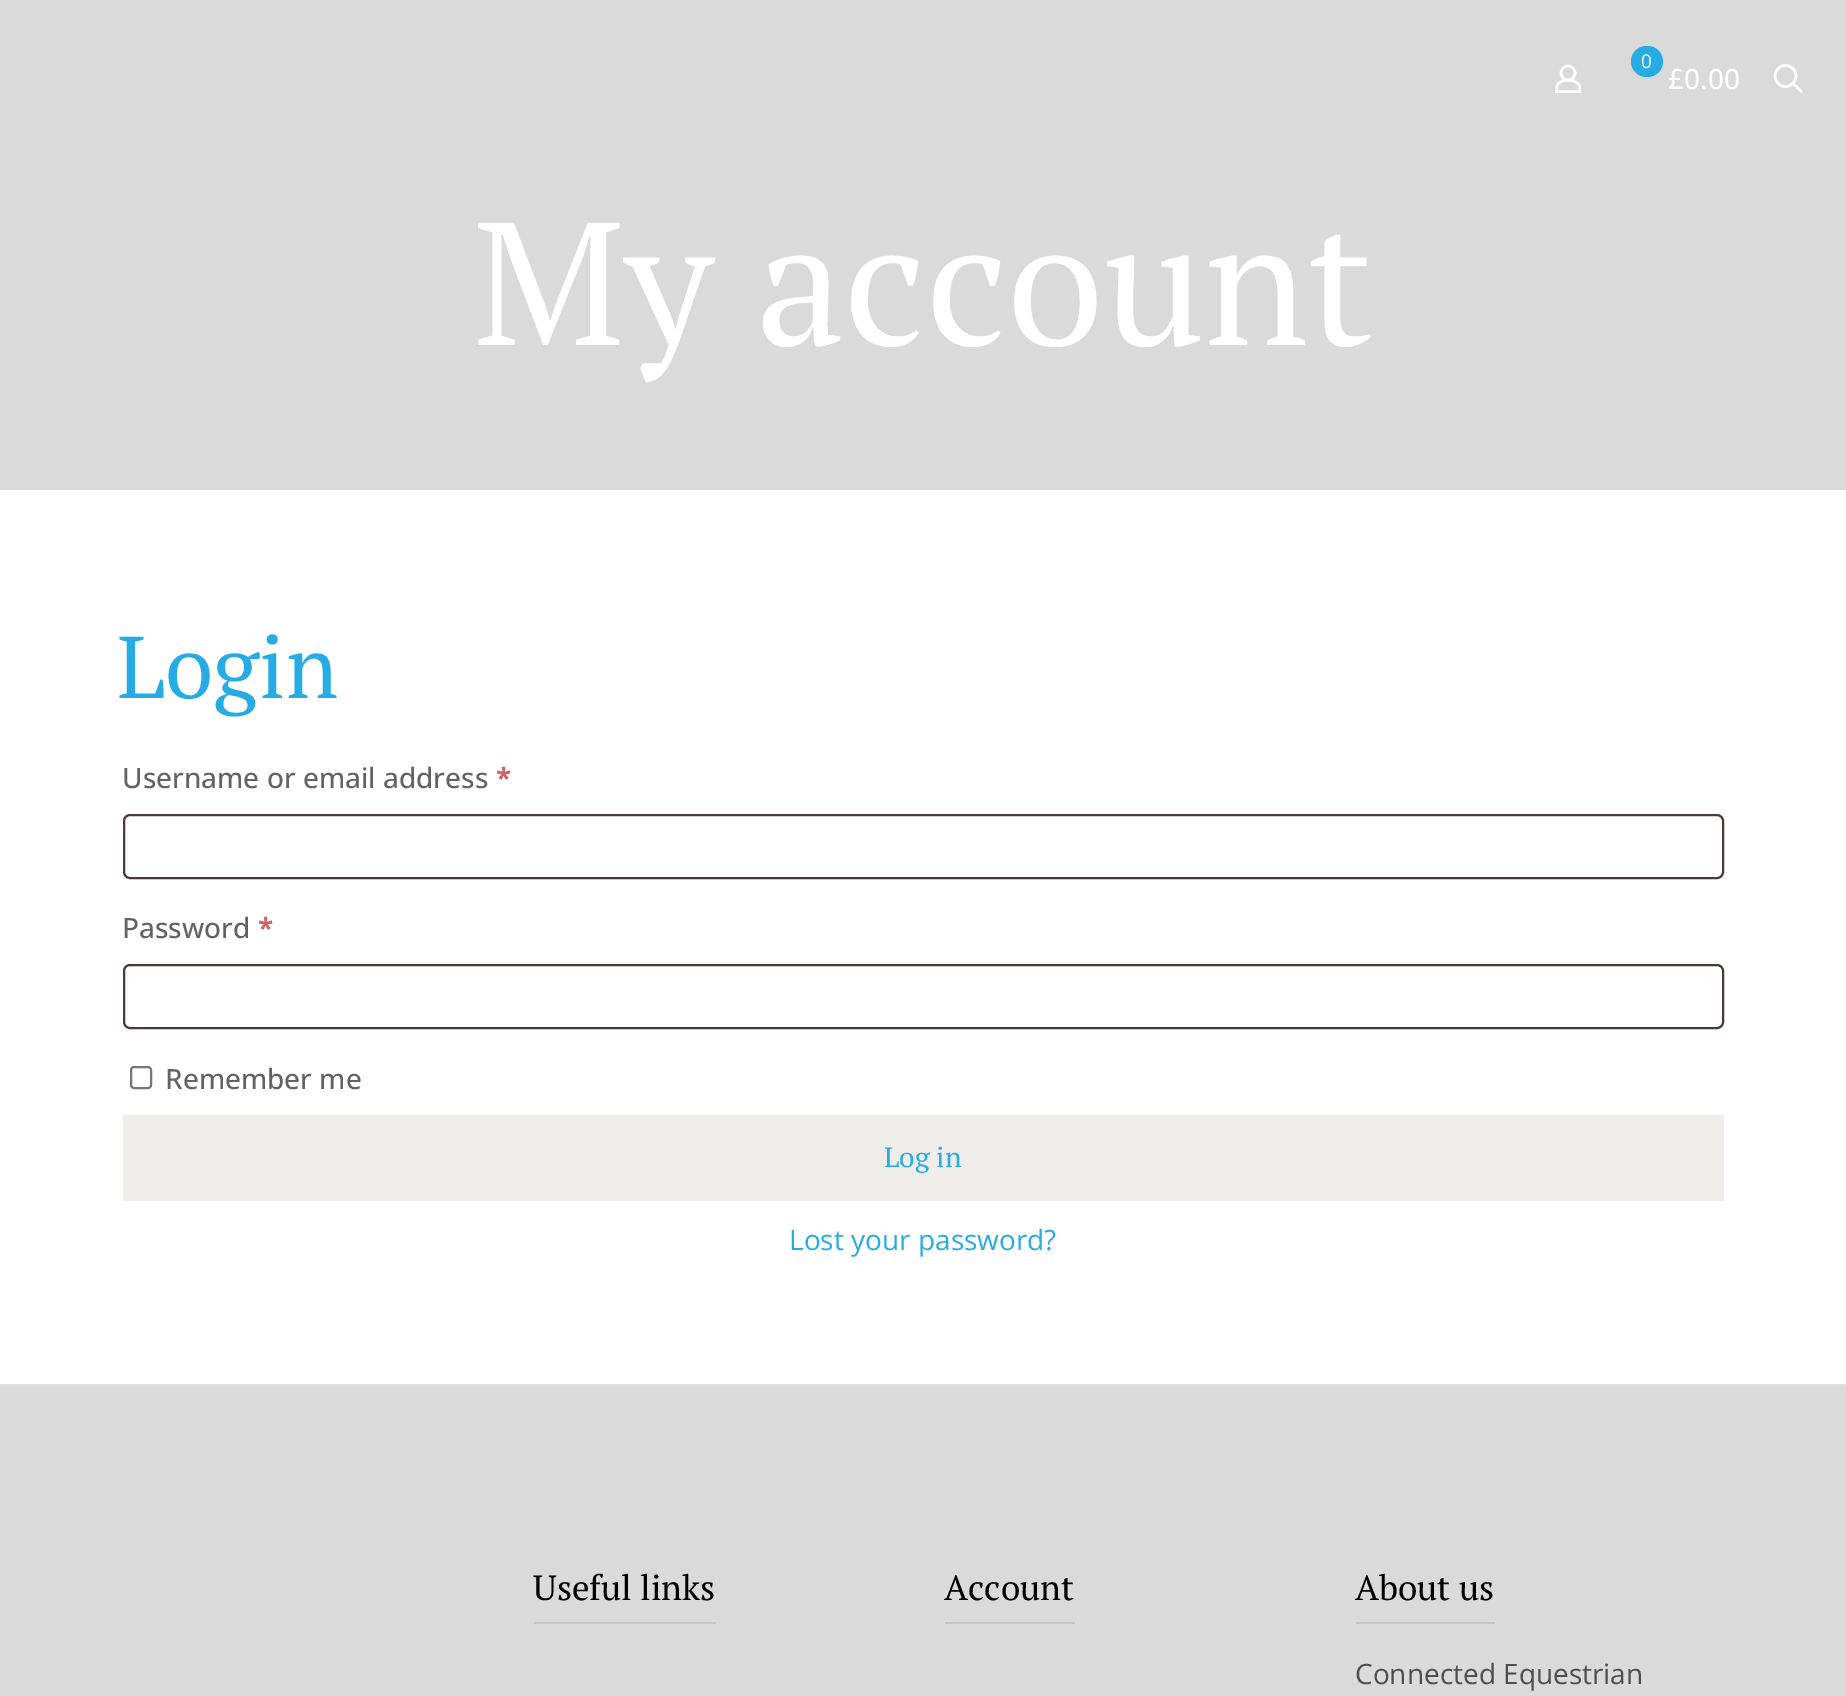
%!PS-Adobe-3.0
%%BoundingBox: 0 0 1846 1696
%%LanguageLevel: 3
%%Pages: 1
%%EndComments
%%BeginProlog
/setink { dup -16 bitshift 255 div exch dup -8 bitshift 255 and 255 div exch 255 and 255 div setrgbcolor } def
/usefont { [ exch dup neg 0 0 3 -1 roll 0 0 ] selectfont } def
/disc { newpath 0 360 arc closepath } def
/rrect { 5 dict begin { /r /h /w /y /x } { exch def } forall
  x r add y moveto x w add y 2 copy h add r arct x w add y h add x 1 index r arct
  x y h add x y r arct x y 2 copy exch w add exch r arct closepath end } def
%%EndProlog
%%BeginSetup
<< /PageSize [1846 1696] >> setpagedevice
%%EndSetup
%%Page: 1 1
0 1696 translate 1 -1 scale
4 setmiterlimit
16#FFFFFF setink
0 0 1846 1696 rectfill
16#DADADB setink
0 0 1846 490 rectfill
16#FFFFFF setink
2.6 setlinewidth
1568 73 7 disc stroke
1579.5 87.5 moveto 1579.5 91.5 lineto 1556.5 91.5 lineto 1557 86 lineto 1559.5 77.5 1579.5 78.5 1579.5 87.5 curveto closepath stroke
16#27ABE5 setink
1631 46 32 31 15.5 rrect fill
/OpenSans-Regular 19 usefont
16#FFFFFF setink
1641 68 moveto (0) show
/OpenSans-Medium 28 usefont
1668 89 moveto (£0.00) show
1785.5 76 10.5 disc stroke
1793 83.5 moveto 1802 92 lineto stroke
/PTSerif-Regular 175 usefont
473 345 moveto (My account) show
/PTSerif-Regular 87.5 usefont
16#27ABE5 setink
117 698 moveto (Login) show
/OpenSans-Medium 28 usefont
16#626262 setink
122 788 moveto (Username or email address) show
/OpenSans-Bold 28 usefont
16#CC6666 setink
496 788 moveto (*) show
16#4D3939 setink
2 setlinewidth
124 815 1599 63 6 rrect stroke
/OpenSans-Medium 28 usefont
16#626262 setink
122 938 moveto (Password) show
/OpenSans-Bold 28 usefont
16#CC6666 setink
258 938 moveto (*) show
16#4D3939 setink
124 965 1599 63 6 rrect stroke
16#767676 setink
131 1067 20 21 3 rrect stroke
/OpenSans-Medium 28 usefont
16#626262 setink
165 1089 moveto (Remember me) show
16#EEEDEA setink
123 1115 1601 86 rectfill
/PTSerif-Regular 28 usefont
16#27ABE5 setink
884 1167 moveto (Log in) show
/OpenSans-Regular 28 usefont
789 1250 moveto (Lost your password?) show
[
    [0 1386 1846 310 16#DADADB]
    [0 1384 1846 2 16#DEDDD9]
    [534 1622 182 2 16#C6C5C2]
] { aload pop setink rectfill } forall
/PTSerif-Regular 35 usefont
16#000000 setink
533 1600 moveto (Useful links) show
16#C6C5C2 setink
945 1622 130 2 rectfill
16#000000 setink
944 1600 moveto (Account) show
16#C6C5C2 setink
1356 1622 139 2 rectfill
16#000000 setink
1355 1600 moveto (About us) show
/OpenSans-Regular 28 usefont
16#4D4D4D setink
1355 1684 moveto (Connected Equestrian) show
showpage
%%EOF
